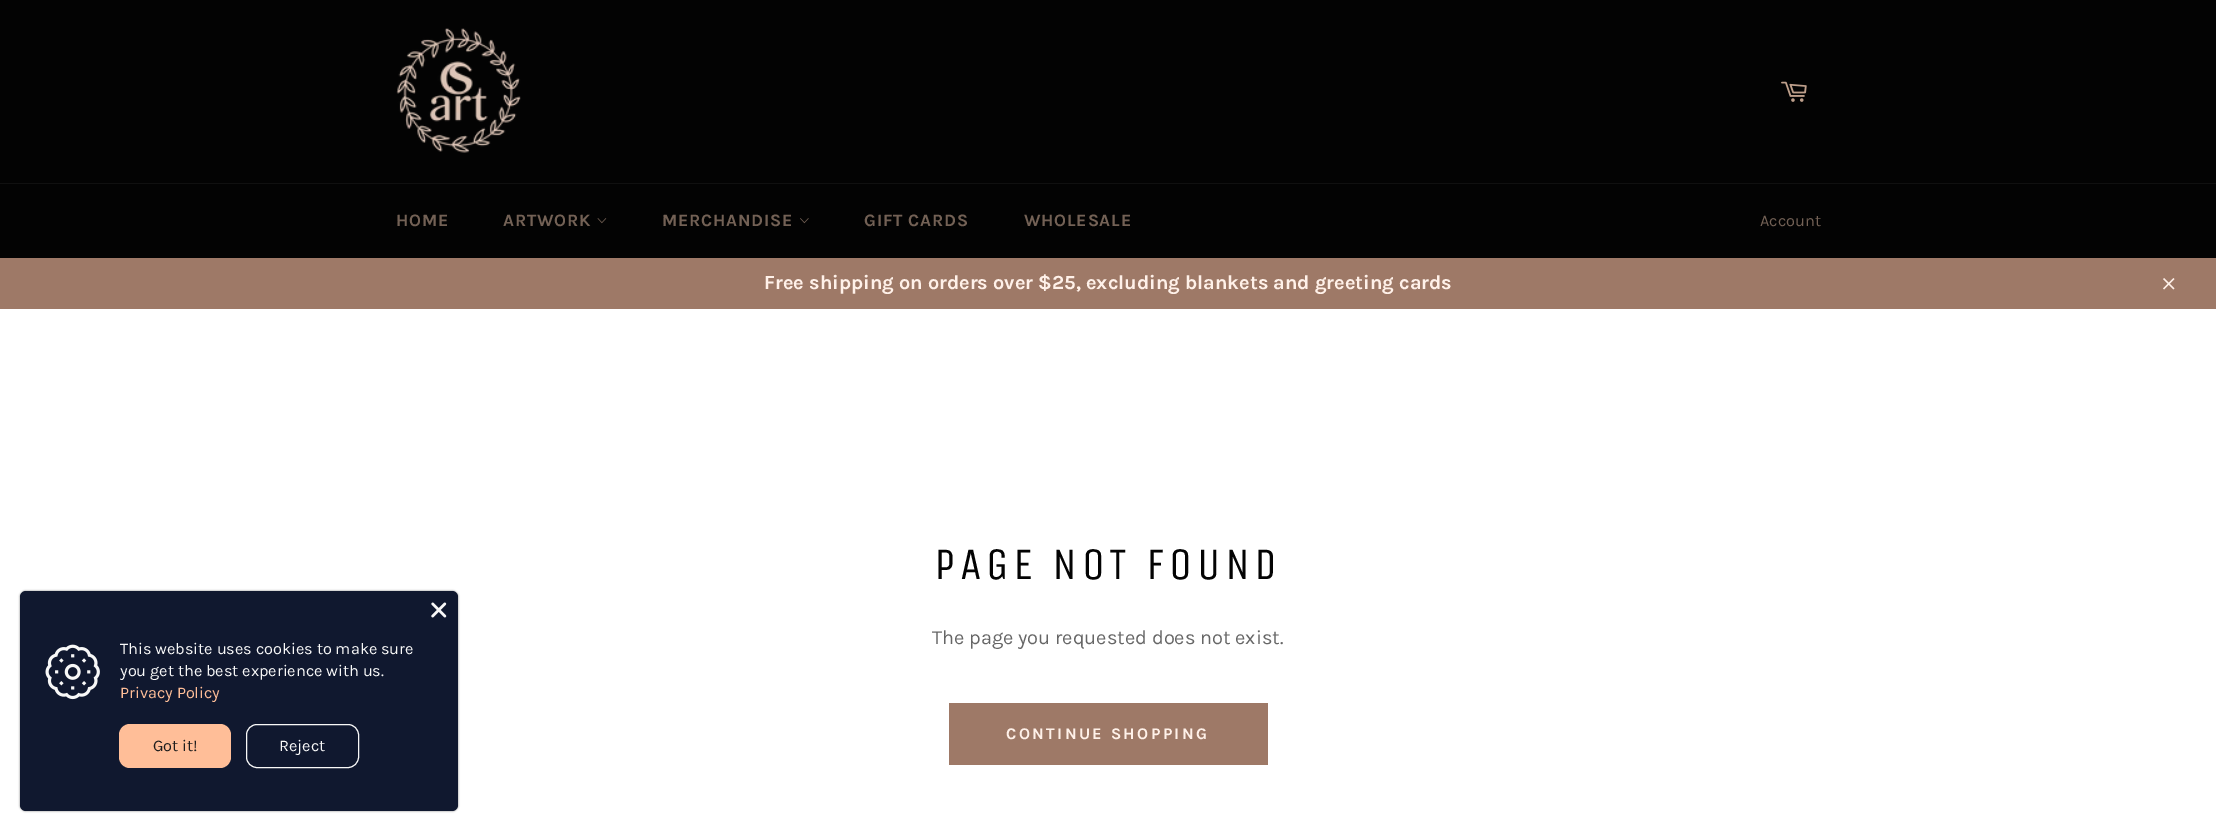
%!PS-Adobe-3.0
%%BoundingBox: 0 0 2216 831
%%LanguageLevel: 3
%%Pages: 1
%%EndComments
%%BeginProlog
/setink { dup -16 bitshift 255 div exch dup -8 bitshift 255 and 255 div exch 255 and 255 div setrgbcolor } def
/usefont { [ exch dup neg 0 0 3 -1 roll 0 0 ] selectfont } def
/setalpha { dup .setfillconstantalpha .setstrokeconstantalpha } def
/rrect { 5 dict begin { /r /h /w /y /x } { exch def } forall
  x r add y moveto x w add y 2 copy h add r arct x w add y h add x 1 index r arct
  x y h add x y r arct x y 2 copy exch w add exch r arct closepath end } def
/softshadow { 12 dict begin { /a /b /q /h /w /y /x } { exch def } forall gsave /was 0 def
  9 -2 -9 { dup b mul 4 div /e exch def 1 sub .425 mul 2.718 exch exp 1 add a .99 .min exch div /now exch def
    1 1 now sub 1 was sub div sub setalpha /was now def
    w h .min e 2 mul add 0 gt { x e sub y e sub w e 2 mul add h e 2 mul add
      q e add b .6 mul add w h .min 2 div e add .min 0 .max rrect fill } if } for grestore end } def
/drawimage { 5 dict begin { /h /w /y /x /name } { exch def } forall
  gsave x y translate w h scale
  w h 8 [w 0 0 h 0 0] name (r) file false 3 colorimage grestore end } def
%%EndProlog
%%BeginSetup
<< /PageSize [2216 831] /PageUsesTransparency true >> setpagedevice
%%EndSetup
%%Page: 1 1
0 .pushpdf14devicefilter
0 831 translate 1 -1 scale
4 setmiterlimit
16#FFFFFF setink
0 0 2216 831 rectfill
16#030303 setink
0 0 2216 183 rectfill
(img1.raw) 396 28 125 125 drawimage
(img2.raw) 1781 81 26 21 drawimage
0 184 2216 74 rectfill
16#101010 setink
0 183 2216 1 rectfill
/Karla-Bold 17.5 usefont
16#736155 setink
396 226 moveto 0.75 0 (HOME) ashow
503 226 moveto 0.75 0 (ARTWORK) ashow
(img3.raw) 597 218 10 6 drawimage
662 226 moveto 0.75 0 (MERCHANDISE) ashow
(img4.raw) 800 218 9 6 drawimage
864 226 moveto 0.75 0 (GIFT CARDS) ashow
1024 226 moveto 0.75 0 (WHOLESALE) ashow
/Karla-Regular 16.25 usefont
1760 226 moveto (Account) show
16#9E7967 setink
0 258 2216 51 rectfill
/Karla-Bold 20 usefont
16#FFF1E9 setink
764 289 moveto (Free shipping on orders over $25, excluding blankets and greeting cards) show
(img5.raw) 2163 278 12 12 drawimage
16#000000 setink
20 591 438 220 6 1 0.5 softshadow
16#10182F setink
20 591 438 220 6 rrect fill
(img6.raw) 431 602 16 16 drawimage
(img7.raw) 45 644 55 56 drawimage
/Karla-Regular 16.25 usefont
16#F8F8F8 setink
120 654 moveto (This website uses cookies to make sure) show
120 676 moveto (you get the best experience with us.) show
16#FFBE98 setink
120 698 moveto (Privacy Policy) show
119 724 112 44 11 rrect fill
16#1D1D1D setink
153 751 moveto (Got it!) show
16#F8F8F8 setink
246.5 724.5 112 43 10.5 rrect stroke
279 751 moveto (Reject) show
/UnicaOne-Regular 45 usefont
16#030303 setink
934 579 moveto 4.5 0 (PAGE NOT FOUND) ashow
/Karla-Regular 20 usefont
16#666666 setink
932 644 moveto (The page you requested does not exist.) show
16#9E7967 setink
949 703 319 62 rectfill
/Karla-Bold 16.25 usefont
16#FFF1E9 setink
1006 739 moveto 2.4 0 (CONTINUE SHOPPING) ashow
.poppdf14devicefilter showpage
%%EOF
